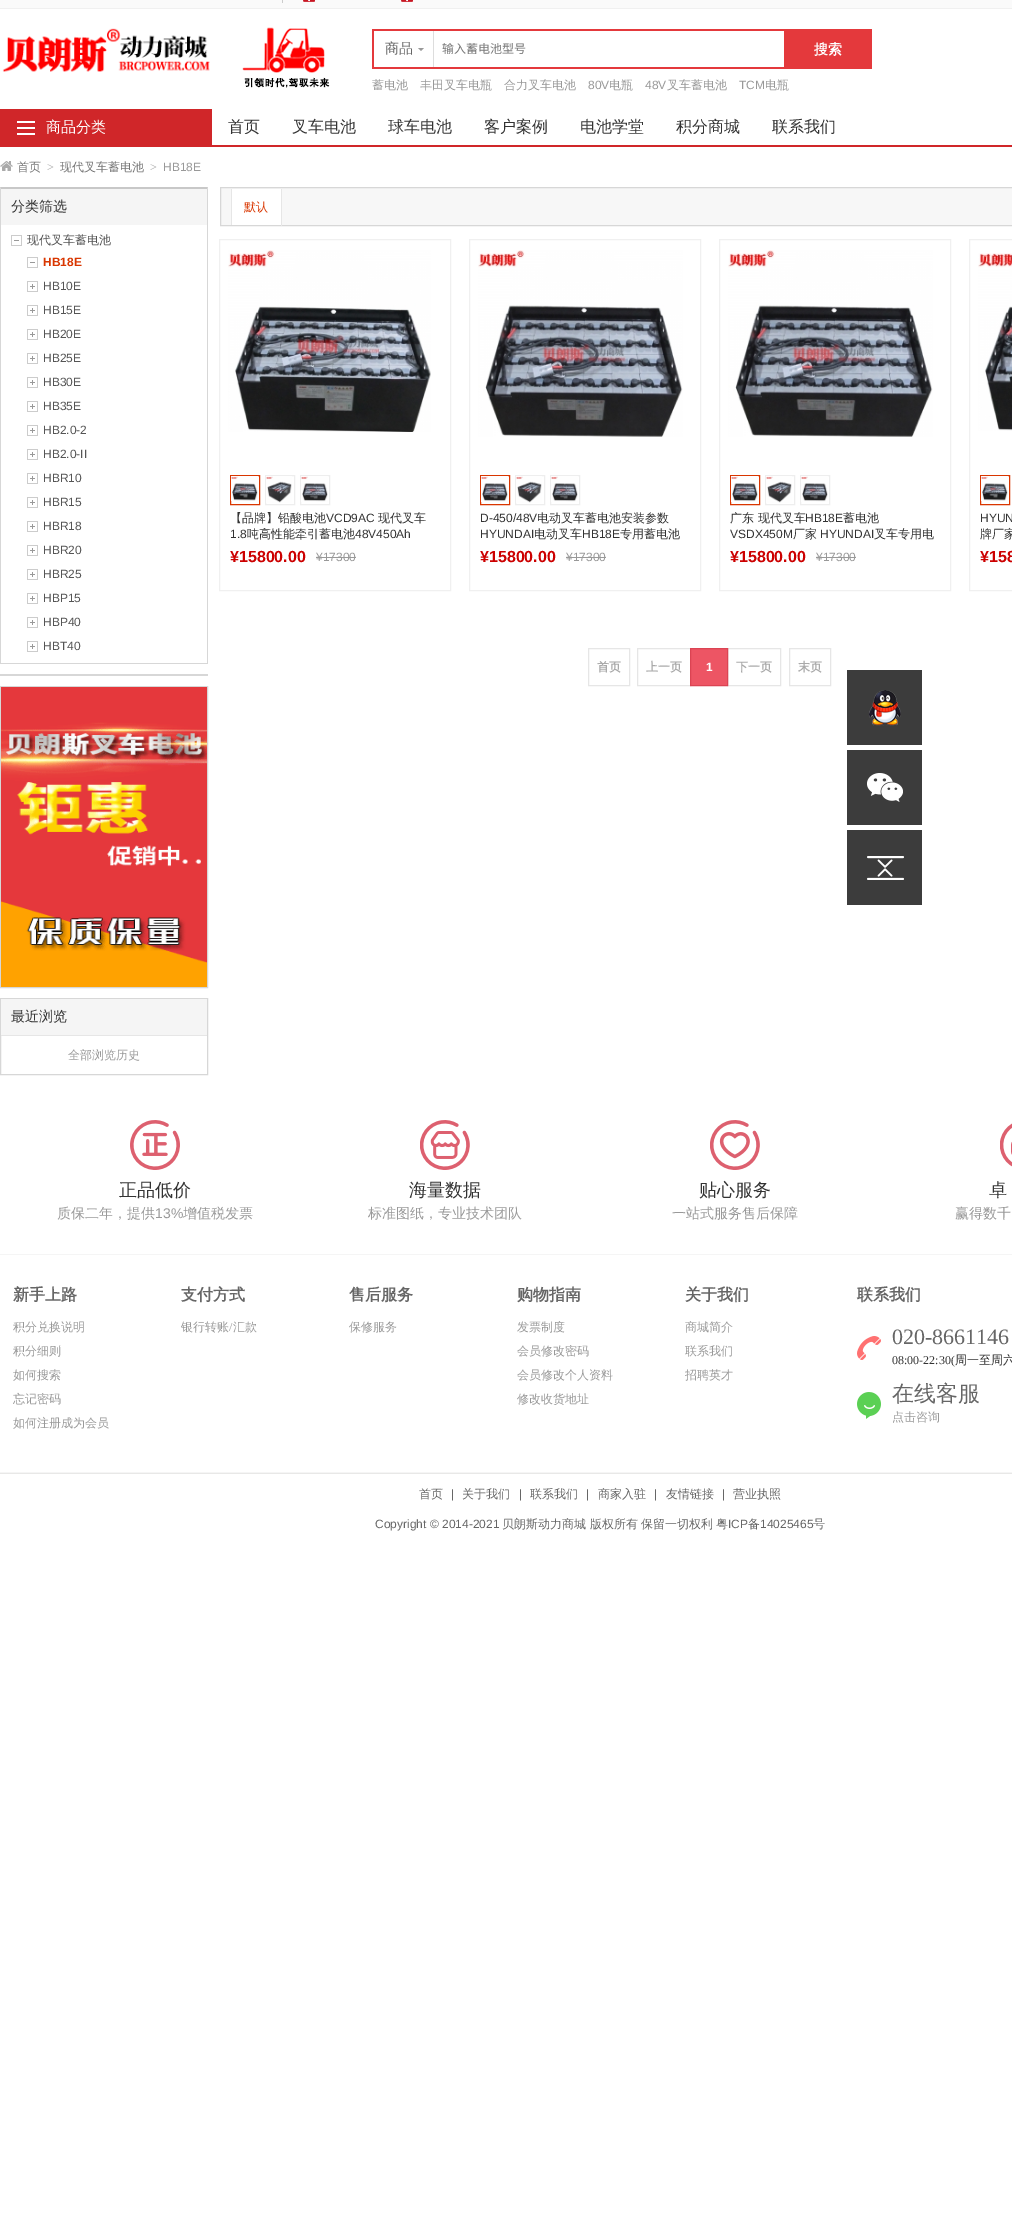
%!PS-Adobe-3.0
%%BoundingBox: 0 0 1012 2234
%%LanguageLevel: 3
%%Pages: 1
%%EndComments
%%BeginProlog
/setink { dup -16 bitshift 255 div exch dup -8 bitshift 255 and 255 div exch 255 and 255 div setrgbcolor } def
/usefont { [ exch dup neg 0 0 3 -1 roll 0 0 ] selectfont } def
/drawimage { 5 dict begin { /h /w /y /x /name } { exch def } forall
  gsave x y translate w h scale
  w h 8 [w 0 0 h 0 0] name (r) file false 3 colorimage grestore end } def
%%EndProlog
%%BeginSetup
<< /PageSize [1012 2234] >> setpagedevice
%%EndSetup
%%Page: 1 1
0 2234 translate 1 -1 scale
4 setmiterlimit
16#FFFFFF setink
0 0 1012 2234 rectfill
[
    [0 0 1012 8 16#FAFAFA]
    [0 8 1012 1 16#F0F0F0]
    [282 0 1 3 16#CCCCCC]
] { aload pop setink rectfill } forall
(img1.raw) 303 0 12 2 drawimage
(img1.raw) 401 0 12 2 drawimage
(img2.raw) 2 28 208 44 drawimage
(img3.raw) 242 27 88 61 drawimage
[
    [372 29 62 2 16#E4393C]
    [372 67 62 2 16#E4393C]
    [372 29 2 40 16#E4393C]
    [433 31 1 36 16#DDDDDD]
] { aload pop setink rectfill } forall
/WenQuanYiZenHei-Medium 14 usefont
16#666666 setink
385 53 moveto (商品) show
16#999999 setink
418 48 moveto 424 48 lineto 421 51 lineto closepath fill
16#E4393C setink
434 29 438 40 rectfill
16#FFFFFF setink
434 31 350 36 rectfill
/NotoSansCJKSC-Regular 12 usefont
16#777777 setink
442 53 moveto (输入蓄电池型号) show
/WenQuanYiZenHei-Bold 14 usefont
16#FFFFFF setink
814 54 moveto (搜索) show
/WenQuanYiZenHei-Medium 12 usefont
16#999999 setink
[
    [(蓄电池) 372 89]
    [(丰田叉车电瓶) 420 89]
    [(合力叉车电池) 504 89]
] { aload pop moveto show } forall
/LiberationSans-Regular 12 usefont
588 89 moveto (80V) show
/WenQuanYiZenHei-Medium 12 usefont
609 89 moveto (电瓶) show
/LiberationSans-Regular 12 usefont
645 89 moveto (48V) show
/WenQuanYiZenHei-Medium 12 usefont
667 89 moveto (叉车蓄电池) show
/LiberationSans-Regular 12 usefont
739 89 moveto (TCM) show
/WenQuanYiZenHei-Medium 12 usefont
765 89 moveto (电瓶) show
16#D02629 setink
0 145 1012 2 rectfill
0 109 212 36 rectfill
(img4.raw) 17 121 18 14 drawimage
/WenQuanYiZenHei-Medium 15 usefont
16#FFFFFF setink
46 132 moveto (商品分类) show
/WenQuanYiZenHei-Medium 16 usefont
16#333333 setink
[
    [(首页) 228 132]
    [(叉车电池) 292 132]
    [(球车电池) 388 132]
    [(客户案例) 484 132]
    [(电池学堂) 580 132]
    [(积分商城) 676 132]
    [(联系我们) 772 132]
] { aload pop moveto show } forall
(img5.raw) 0 161 13 10 drawimage
/WenQuanYiZenHei-Medium 12 usefont
16#777777 setink
17 171 moveto (首页) show
/LiberationSerif-Regular 12 usefont
16#AAAAAA setink
47 171 moveto (>) show
/WenQuanYiZenHei-Medium 12 usefont
16#777777 setink
60 171 moveto (现代叉车蓄电池) show
/LiberationSerif-Regular 12 usefont
16#AAAAAA setink
150 171 moveto (>) show
/LiberationSans-Regular 12 usefont
16#999999 setink
163 171 moveto (HB18E) show
16#C8C8C8 setink
0 187 moveto 208 187 lineto 207 189 lineto 1 189 lineto closepath fill
16#D7D7D7 setink
208 187 moveto 208 664 lineto 207 663 lineto 207 189 lineto closepath fill
0 663 208 1 rectfill
0 664 moveto 0 187 lineto 1 189 lineto 1 663 lineto closepath fill
16#F5F5F5 setink
1 189 206 36 rectfill
/WenQuanYiZenHei-Medium 14 usefont
16#333333 setink
11 211 moveto (分类筛选) show
(img6.raw) 11 235 11 11 drawimage
/WenQuanYiZenHei-Medium 12 usefont
16#555555 setink
27 244 moveto (现代叉车蓄电池) show
(img6.raw) 27 257 11 11 drawimage
/LiberationSans-Bold 12 usefont
16#D93600 setink
43 266 moveto (HB18E) show
(img7.raw) 27 281 11 11 drawimage
/LiberationSans-Regular 12 usefont
16#555555 setink
43 290 moveto (HB10E) show
(img7.raw) 27 305 11 11 drawimage
43 314 moveto (HB15E) show
(img7.raw) 27 329 11 11 drawimage
43 338 moveto (HB20E) show
(img7.raw) 27 353 11 11 drawimage
43 362 moveto (HB25E) show
(img7.raw) 27 377 11 11 drawimage
43 386 moveto (HB30E) show
(img7.raw) 27 401 11 11 drawimage
43 410 moveto (HB35E) show
(img7.raw) 27 425 11 11 drawimage
43 434 moveto (HB2.0-2) show
(img7.raw) 27 449 11 11 drawimage
43 458 moveto (HB2.0-II) show
(img7.raw) 27 473 11 11 drawimage
43 482 moveto (HBR10) show
(img7.raw) 27 497 11 11 drawimage
43 506 moveto (HBR15) show
(img7.raw) 27 521 11 11 drawimage
43 530 moveto (HBR18) show
(img7.raw) 27 545 11 11 drawimage
43 554 moveto (HBR20) show
(img7.raw) 27 569 11 11 drawimage
43 578 moveto (HBR25) show
(img7.raw) 27 593 11 11 drawimage
43 602 moveto (HBP15) show
(img7.raw) 27 617 11 11 drawimage
43 626 moveto (HBP40) show
(img7.raw) 27 641 11 11 drawimage
43 650 moveto (HBT40) show
16#D7D7D7 setink
0 674 208 2 rectfill
0.5 686.5 207 301 rectstroke
(img8.raw) 1 687 206 300 drawimage
0.5 998.5 207 76 rectstroke
16#F5F5F5 setink
1 999 206 36 rectfill
/WenQuanYiZenHei-Medium 14 usefont
16#333333 setink
11 1021 moveto (最近浏览) show
16#E6E6E6 setink
1 1035 206 1 rectfill
/WenQuanYiZenHei-Medium 12 usefont
16#999999 setink
68 1059 moveto (全部浏览历史) show
16#F7F7F7 setink
220.5 187.5 moveto 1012.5 187.5 lineto 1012.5 225.5 lineto 220.5 225.5 lineto closepath gsave fill grestore
16#D7D7D7 setink
stroke
[
    [281 189 1 37 16#E6E6E6]
    [232 189 49 36 16#FFFFFF]
    [231 189 1 36 16#E6E6E6]
] { aload pop setink rectfill } forall
16#D93600 setink
244 211 moveto (默认) show
16#F0F0F0 setink
219.5 239.5 231 351 rectstroke
(img9.raw) 228 250 203 182 drawimage
16#D93600 setink
230.5 475.5 29 29 rectstroke
(img10.raw) 231 476 27 25 drawimage
16#EEEEEE setink
265.5 475.5 29 29 rectstroke
(img11.raw) 266 476 26 27 drawimage
300.5 475.5 29 29 rectstroke
(img12.raw) 301 476 27 26 drawimage
16#333333 setink
230 522 moveto (【品牌】铅酸电池) show
/LiberationSans-Regular 12 usefont
326 522 moveto (VCD9AC) show
/WenQuanYiZenHei-Medium 12 usefont
378 522 moveto (现代叉车) show
/LiberationSans-Regular 12 usefont
230 538 moveto (1.8) show
/WenQuanYiZenHei-Medium 12 usefont
247 538 moveto (吨高性能牵引蓄电池) show
/LiberationSans-Regular 12 usefont
355 538 moveto (48V450Ah) show
/LiberationSans-Bold 16 usefont
16#CC0000 setink
230 562 moveto (¥15800.00) show
/LiberationSans-Regular 12 usefont
16#999999 setink
316 561 moveto (¥17300) show
316 557 40 1 rectfill
16#F0F0F0 setink
469.5 239.5 231 351 rectstroke
(img13.raw) 478 250 205 187 drawimage
16#D93600 setink
480.5 475.5 29 29 rectstroke
(img14.raw) 481 476 27 26 drawimage
16#EEEEEE setink
515.5 475.5 29 29 rectstroke
(img11.raw) 516 476 26 27 drawimage
550.5 475.5 29 29 rectstroke
(img14.raw) 551 476 27 26 drawimage
16#333333 setink
480 522 moveto (D-450/48V) show
/WenQuanYiZenHei-Medium 12 usefont
537 522 moveto (电动叉车蓄电池安装参数) show
/LiberationSans-Regular 12 usefont
480 538 moveto (HYUNDAI) show
/WenQuanYiZenHei-Medium 12 usefont
534 538 moveto (电动叉车) show
/LiberationSans-Regular 12 usefont
582 538 moveto (HB18E) show
/WenQuanYiZenHei-Medium 12 usefont
620 538 moveto (专用蓄电池) show
/LiberationSans-Bold 16 usefont
16#CC0000 setink
480 562 moveto (¥15800.00) show
/LiberationSans-Regular 12 usefont
16#999999 setink
566 561 moveto (¥17300) show
566 557 40 1 rectfill
16#F0F0F0 setink
719.5 239.5 231 351 rectstroke
(img15.raw) 728 250 205 187 drawimage
16#D93600 setink
730.5 475.5 29 29 rectstroke
(img12.raw) 731 476 27 26 drawimage
16#EEEEEE setink
765.5 475.5 29 29 rectstroke
(img11.raw) 766 476 26 27 drawimage
800.5 475.5 29 29 rectstroke
(img14.raw) 801 476 27 26 drawimage
/WenQuanYiZenHei-Medium 12 usefont
16#333333 setink
730 522 moveto (广东 现代叉车) show
/LiberationSans-Regular 12 usefont
805 522 moveto (HB18E) show
/WenQuanYiZenHei-Medium 12 usefont
843 522 moveto (蓄电池) show
/LiberationSans-Regular 12 usefont
730 538 moveto (VSDX450M) show
/WenQuanYiZenHei-Medium 12 usefont
793 538 moveto (厂家) show
/LiberationSans-Regular 12 usefont
820 538 moveto (HYUNDAI) show
/WenQuanYiZenHei-Medium 12 usefont
874 538 moveto (叉车专用电) show
/LiberationSans-Bold 16 usefont
16#CC0000 setink
730 562 moveto (¥15800.00) show
/LiberationSans-Regular 12 usefont
16#999999 setink
816 561 moveto (¥17300) show
816 557 40 1 rectfill
16#F0F0F0 setink
969.5 239.5 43 351 rectstroke
(img16.raw) 978 253 34 178 drawimage
16#D93600 setink
980.5 475.5 29 29 rectstroke
(img17.raw) 981 476 27 25 drawimage
16#333333 setink
980 522 moveto (HYUN) show
/WenQuanYiZenHei-Medium 12 usefont
980 538 moveto (牌厂家) show
/LiberationSans-Bold 16 usefont
16#CC0000 setink
980 562 moveto (¥158) show
16#E6E6E6 setink
588.5 648.5 41 37 rectstroke
/WenQuanYiZenHei-Bold 12 usefont
16#AAAAAA setink
597 671 moveto (首页) show
16#E6E6E6 setink
637.5 648.5 53 37 rectstroke
16#AAAAAA setink
646 671 moveto (上一页) show
16#E6E6E6 setink
727.5 648.5 53 37 rectstroke
16#ED5564 setink
690.5 648.5 moveto 727.5 648.5 lineto 727.5 685.5 lineto 690.5 685.5 lineto closepath gsave fill grestore
16#DB4453 setink
stroke
/LiberationSans-Bold 12 usefont
16#FFFFFF setink
706 671 moveto (1) show
/WenQuanYiZenHei-Bold 12 usefont
16#AAAAAA setink
736 671 moveto (下一页) show
16#E6E6E6 setink
789.5 648.5 41 37 rectstroke
16#AAAAAA setink
798 671 moveto (末页) show
16#3C3C3C setink
847 670 75 75 rectfill
(img18.raw) 869 690 32 36 drawimage
847 750 75 75 rectfill
(img19.raw) 867 773 36 29 drawimage
847 830 75 75 rectfill
(img20.raw) 867 856 37 24 drawimage
(img21.raw) 130 1120 50 50 drawimage
/WenQuanYiZenHei-Medium 18 usefont
16#333333 setink
119 1196 moveto (正品低价) show
/WenQuanYiZenHei-Medium 14 usefont
16#999999 setink
57 1218 moveto (质保二年，提供) show
/LiberationSans-Regular 14 usefont
155 1218 moveto (13%) show
/WenQuanYiZenHei-Medium 14 usefont
183 1218 moveto (增值税发票) show
(img22.raw) 420 1120 50 50 drawimage
/WenQuanYiZenHei-Medium 18 usefont
16#333333 setink
409 1196 moveto (海量数据) show
/WenQuanYiZenHei-Medium 14 usefont
16#999999 setink
368 1218 moveto (标准图纸，专业技术团队) show
(img23.raw) 710 1120 50 50 drawimage
/WenQuanYiZenHei-Medium 18 usefont
16#333333 setink
699 1196 moveto (贴心服务) show
/WenQuanYiZenHei-Medium 14 usefont
16#999999 setink
672 1218 moveto (一站式服务售后保障) show
(img24.raw) 1000 1123 12 44 drawimage
/WenQuanYiZenHei-Medium 18 usefont
16#333333 setink
989 1196 moveto (卓) show
/WenQuanYiZenHei-Medium 14 usefont
16#999999 setink
955 1218 moveto (赢得数千) show
16#F5F5F5 setink
0 1254 1012 1 rectfill
0 1472 1012 1 rectfill
/WenQuanYiZenHei-Bold 16 usefont
16#666666 setink
13 1300 moveto (新手上路) show
/WenQuanYiZenHei-Medium 12 usefont
16#999999 setink
[
    [(积分兑换说明) 13 1331]
    [(积分细则) 13 1355]
    [(如何搜索) 13 1379]
    [(忘记密码) 13 1403]
    [(如何注册成为会员) 13 1427]
] { aload pop moveto show } forall
/WenQuanYiZenHei-Bold 16 usefont
16#666666 setink
181 1300 moveto (支付方式) show
/WenQuanYiZenHei-Medium 12 usefont
16#999999 setink
181 1331 moveto (银行转账) show
/LiberationSerif-Regular 12 usefont
229 1331 moveto (/) show
/WenQuanYiZenHei-Medium 12 usefont
233 1331 moveto (汇款) show
/WenQuanYiZenHei-Bold 16 usefont
16#666666 setink
349 1300 moveto (售后服务) show
/WenQuanYiZenHei-Medium 12 usefont
16#999999 setink
349 1331 moveto (保修服务) show
/WenQuanYiZenHei-Bold 16 usefont
16#666666 setink
517 1300 moveto (购物指南) show
/WenQuanYiZenHei-Medium 12 usefont
16#999999 setink
[
    [(发票制度) 517 1331]
    [(会员修改密码) 517 1355]
    [(会员修改个人资料) 517 1379]
    [(修改收货地址) 517 1403]
] { aload pop moveto show } forall
/WenQuanYiZenHei-Bold 16 usefont
16#666666 setink
685 1300 moveto (关于我们) show
/WenQuanYiZenHei-Medium 12 usefont
16#999999 setink
[
    [(商城简介) 685 1331]
    [(联系我们) 685 1355]
    [(招聘英才) 685 1379]
] { aload pop moveto show } forall
/WenQuanYiZenHei-Bold 16 usefont
16#666666 setink
857 1300 moveto (联系我们) show
(img25.raw) 857 1336 24 24 drawimage
/LiberationSerif-Regular 22 usefont
892 1344 moveto (020-8661146) show
/LiberationSerif-Regular 12 usefont
16#333333 setink
892 1364 moveto (08:00-22:30\() show
/WenQuanYiZenHei-Medium 12 usefont
955 1364 moveto (周一至周六) show
(img26.raw) 857 1392 24 27 drawimage
/WenQuanYiZenHei-Medium 22 usefont
16#666666 setink
892 1401 moveto (在线客服) show
/WenQuanYiZenHei-Medium 12 usefont
16#999999 setink
892 1421 moveto (点击咨询) show
16#E8E8E7 setink
0 1473 1012 1 rectfill
16#666666 setink
419 1498 moveto (首页) show
/LiberationSans-Regular 12 usefont
451 1498 moveto (|) show
/WenQuanYiZenHei-Medium 12 usefont
462 1498 moveto (关于我们) show
/LiberationSans-Regular 12 usefont
519 1498 moveto (|) show
/WenQuanYiZenHei-Medium 12 usefont
530 1498 moveto (联系我们) show
/LiberationSans-Regular 12 usefont
586 1498 moveto (|) show
/WenQuanYiZenHei-Medium 12 usefont
598 1498 moveto (商家入驻) show
/LiberationSans-Regular 12 usefont
654 1498 moveto (|) show
/WenQuanYiZenHei-Medium 12 usefont
666 1498 moveto (友情链接) show
/LiberationSans-Regular 12 usefont
722 1498 moveto (|) show
/WenQuanYiZenHei-Medium 12 usefont
733 1498 moveto (营业执照) show
/LiberationSans-Regular 12 usefont
375 1528 moveto (Copyright © 2014-2021) show
/WenQuanYiZenHei-Medium 12 usefont
502 1528 moveto (贝朗斯动力商城 版权所有 保留一切权利) show
716 1528 moveto (粤) show
/LiberationSans-Regular 12 usefont
728 1528 moveto (ICP) show
/WenQuanYiZenHei-Medium 12 usefont
748 1528 moveto (备) show
/LiberationSans-Regular 12 usefont
760 1528 moveto (14025465) show
/WenQuanYiZenHei-Medium 12 usefont
813 1528 moveto (号) show
showpage
%%EOF
